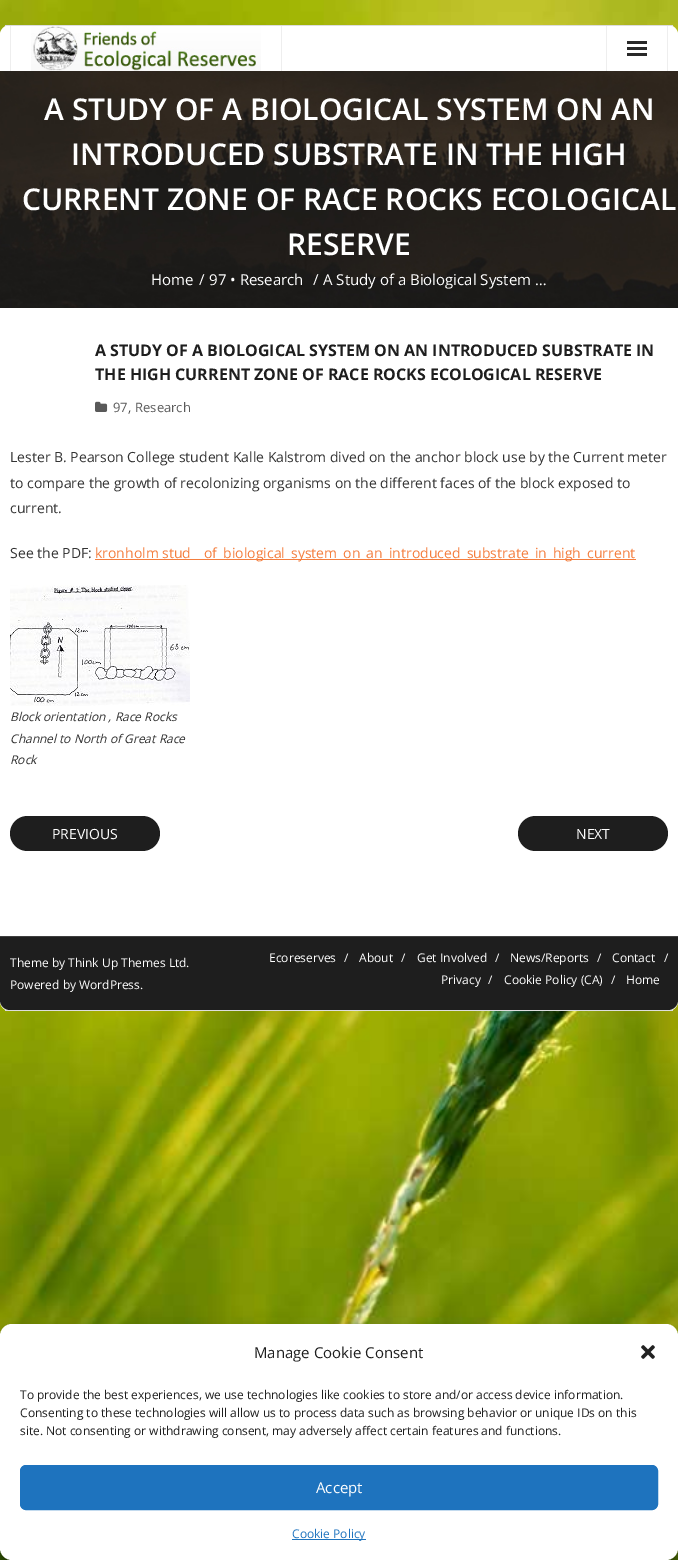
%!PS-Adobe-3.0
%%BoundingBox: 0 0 678 1560
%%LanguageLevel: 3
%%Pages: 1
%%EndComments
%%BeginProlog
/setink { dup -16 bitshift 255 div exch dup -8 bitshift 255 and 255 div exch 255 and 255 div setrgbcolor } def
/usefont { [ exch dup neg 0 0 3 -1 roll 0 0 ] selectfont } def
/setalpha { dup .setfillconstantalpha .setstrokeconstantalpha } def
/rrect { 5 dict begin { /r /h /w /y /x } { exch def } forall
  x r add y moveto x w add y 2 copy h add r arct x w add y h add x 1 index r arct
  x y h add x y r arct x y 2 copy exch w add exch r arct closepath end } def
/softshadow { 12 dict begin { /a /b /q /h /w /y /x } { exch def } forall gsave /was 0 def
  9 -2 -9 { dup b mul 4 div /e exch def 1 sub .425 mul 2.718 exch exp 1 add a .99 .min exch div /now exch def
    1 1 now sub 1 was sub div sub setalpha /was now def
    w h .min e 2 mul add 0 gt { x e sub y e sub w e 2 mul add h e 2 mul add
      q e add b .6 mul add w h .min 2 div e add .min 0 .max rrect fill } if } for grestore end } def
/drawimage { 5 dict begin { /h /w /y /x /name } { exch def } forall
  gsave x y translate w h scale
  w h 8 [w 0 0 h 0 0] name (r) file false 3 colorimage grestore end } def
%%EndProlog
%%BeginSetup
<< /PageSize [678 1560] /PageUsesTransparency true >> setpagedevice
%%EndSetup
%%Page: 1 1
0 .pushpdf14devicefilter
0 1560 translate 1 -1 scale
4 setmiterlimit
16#FFFFFF setink
0 0 678 1560 rectfill
(img1.raw) 0 0 678 1560 drawimage
0 25 678 986 10 rrect fill
16#DDDDDD setink
5 25 668 1 rectfill
5 1010 668 1 rectfill
16#FFFFFF setink
0 26 678 45 10 rrect fill
16#EEEEEE setink
281 26 1 45 rectfill
10 26 1 45 rectfill
(img2.raw) 31 26 230 45 drawimage
[
    [667 26 1 45 16#EEEEEE]
    [606 26 1 45 16#EEEEEE]
    [627 41 20 3 16#292929]
    [627 47 20 3 16#292929]
    [627 53 20 3 16#292929]
] { aload pop setink rectfill } forall
(img3.raw) 0 71 678 237 drawimage
/OpenSans-SemiBold 30 usefont
16#FFFFFF setink
[
    [(A STUDY OF A BIOLOGICAL SYSTEM ON AN) 44 120]
    [(INTRODUCED SUBSTRATE IN THE HIGH) 71 165]
    [(CURRENT ZONE OF RACE ROCKS ECOLOGICAL) 22 210]
    [(RESERVE) 287 255]
] { aload pop moveto show } forall
/OpenSans-Regular 15 usefont
[
    [(Home) 151 285]
    [(/) 199 285]
    [(97 • Research) 209 285]
    [(/) 313 285]
    [(A Study of a Biological System …) 323 285]
] { aload pop moveto show } forall
/OpenSans-Bold 16 usefont
16#1E1E1E setink
95 356 moveto (A STUDY OF A BIOLOGICAL SYSTEM ON AN INTRODUCED SUBSTRATE IN) show
95 380 moveto (THE HIGH CURRENT ZONE OF RACE ROCKS ECOLOGICAL RESERVE) show
(img4.raw) 95 401 13 11 drawimage
/OpenSans-Regular 13 usefont
16#5A5A5A setink
113 412 moveto (97) show
16#474747 setink
128 412 moveto (,) show
16#5A5A5A setink
135 412 moveto (Research) show
/OpenSans-Regular 14 usefont
16#333333 setink
[
    [(Lester B. Pearson College student Kalle Kalstrom dived on the anchor block use by the Current meter) 10 462]
    [(to compare the growth of recolonizing organisms on the different faces of the block exposed to) 10 488]
    [(current.) 10 513]
    [(See the PDF:) 10 558]
] { aload pop moveto show } forall
16#F47E3E setink
95 558 moveto (kronholm stud) show
95 559 541 1 rectfill
204 558 moveto (of_biological_system_on_an_introduced_substrate_in_high_current) show
(img5.raw) 10 585 180 121 drawimage
/OpenSans-Italic 12 usefont
16#333333 setink
[
    [(Block orientation , Race Rocks) 10 721]
    [(Channel to North of Great Race) 10 743]
    [(Rock) 10 764]
] { aload pop moveto show } forall
16#1E1E1E setink
10 816 150 35 17.5 rrect fill
/OpenSans-Regular 14 usefont
16#FFFFFF setink
52 839 moveto (PREVIOUS) show
16#1E1E1E setink
518 816 150 35 17.5 rrect fill
16#FFFFFF setink
576 839 moveto (NEXT) show
16#1E1E1E setink
0 936 moveto 678 936 lineto 678 1000 lineto 678 1005.5 673.5 1010 668 1010 curveto 10 1010 lineto 4.5 1010 0 1005.5 0 1000 curveto closepath fill
16#3F3F3F setink
0 936 678 1 rectfill
/OpenSans-Regular 12 usefont
16#FFFFFF setink
[
    [(Theme by Think Up Themes Ltd.) 10 967]
    [(Powered by WordPress.) 10 989]
    [(Ecoreserves) 269 962]
    [(/) 344 962]
    [(About) 359 962]
    [(/) 401 962]
    [(Get Involved) 417 962]
    [(/) 495 962]
    [(News/Reports) 510 962]
    [(/) 597 962]
    [(Contact) 612 962]
    [(/) 664 962]
    [(Privacy) 441 984]
    [(/) 488 984]
    [(Cookie Policy \(CA\)) 504 984]
    [(/) 611 984]
    [(Home) 626 984]
] { aload pop moveto show } forall
16#000000 setink
0 1330 678 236 12 3 0.23 softshadow
0 1334 678 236 12 10 0.19 softshadow
16#FFFFFF setink
0 1324 678 236 12 rrect fill
/OpenSans-Regular 15 usefont
16#1E1E1E setink
254 1358 moveto (Manage Cookie Consent) show
(img6.raw) 641 1345 14 14 drawimage
/OpenSans-Regular 12 usefont
[
    [(To provide the best experiences, we use technologies like cookies to store and/or access device information.) 20 1399]
    [(Consenting to these technologies will allow us to process data such as browsing behavior or unique IDs on this) 20 1417]
    [(site. Not consenting or withdrawing consent, may adversely affect certain features and functions.) 20 1435]
] { aload pop moveto show } forall
16#1E73BE setink
20.5 1465.5 637 44 5.5 rrect gsave fill grestore
stroke
/OpenSans-Regular 15 usefont
16#FFFFFF setink
316 1493 moveto (Accept) show
16#1E73BE setink
292 1539 74 1 rectfill
/OpenSans-Regular 12 usefont
292 1538 moveto (Cookie Policy) show
.poppdf14devicefilter showpage
%%EOF
